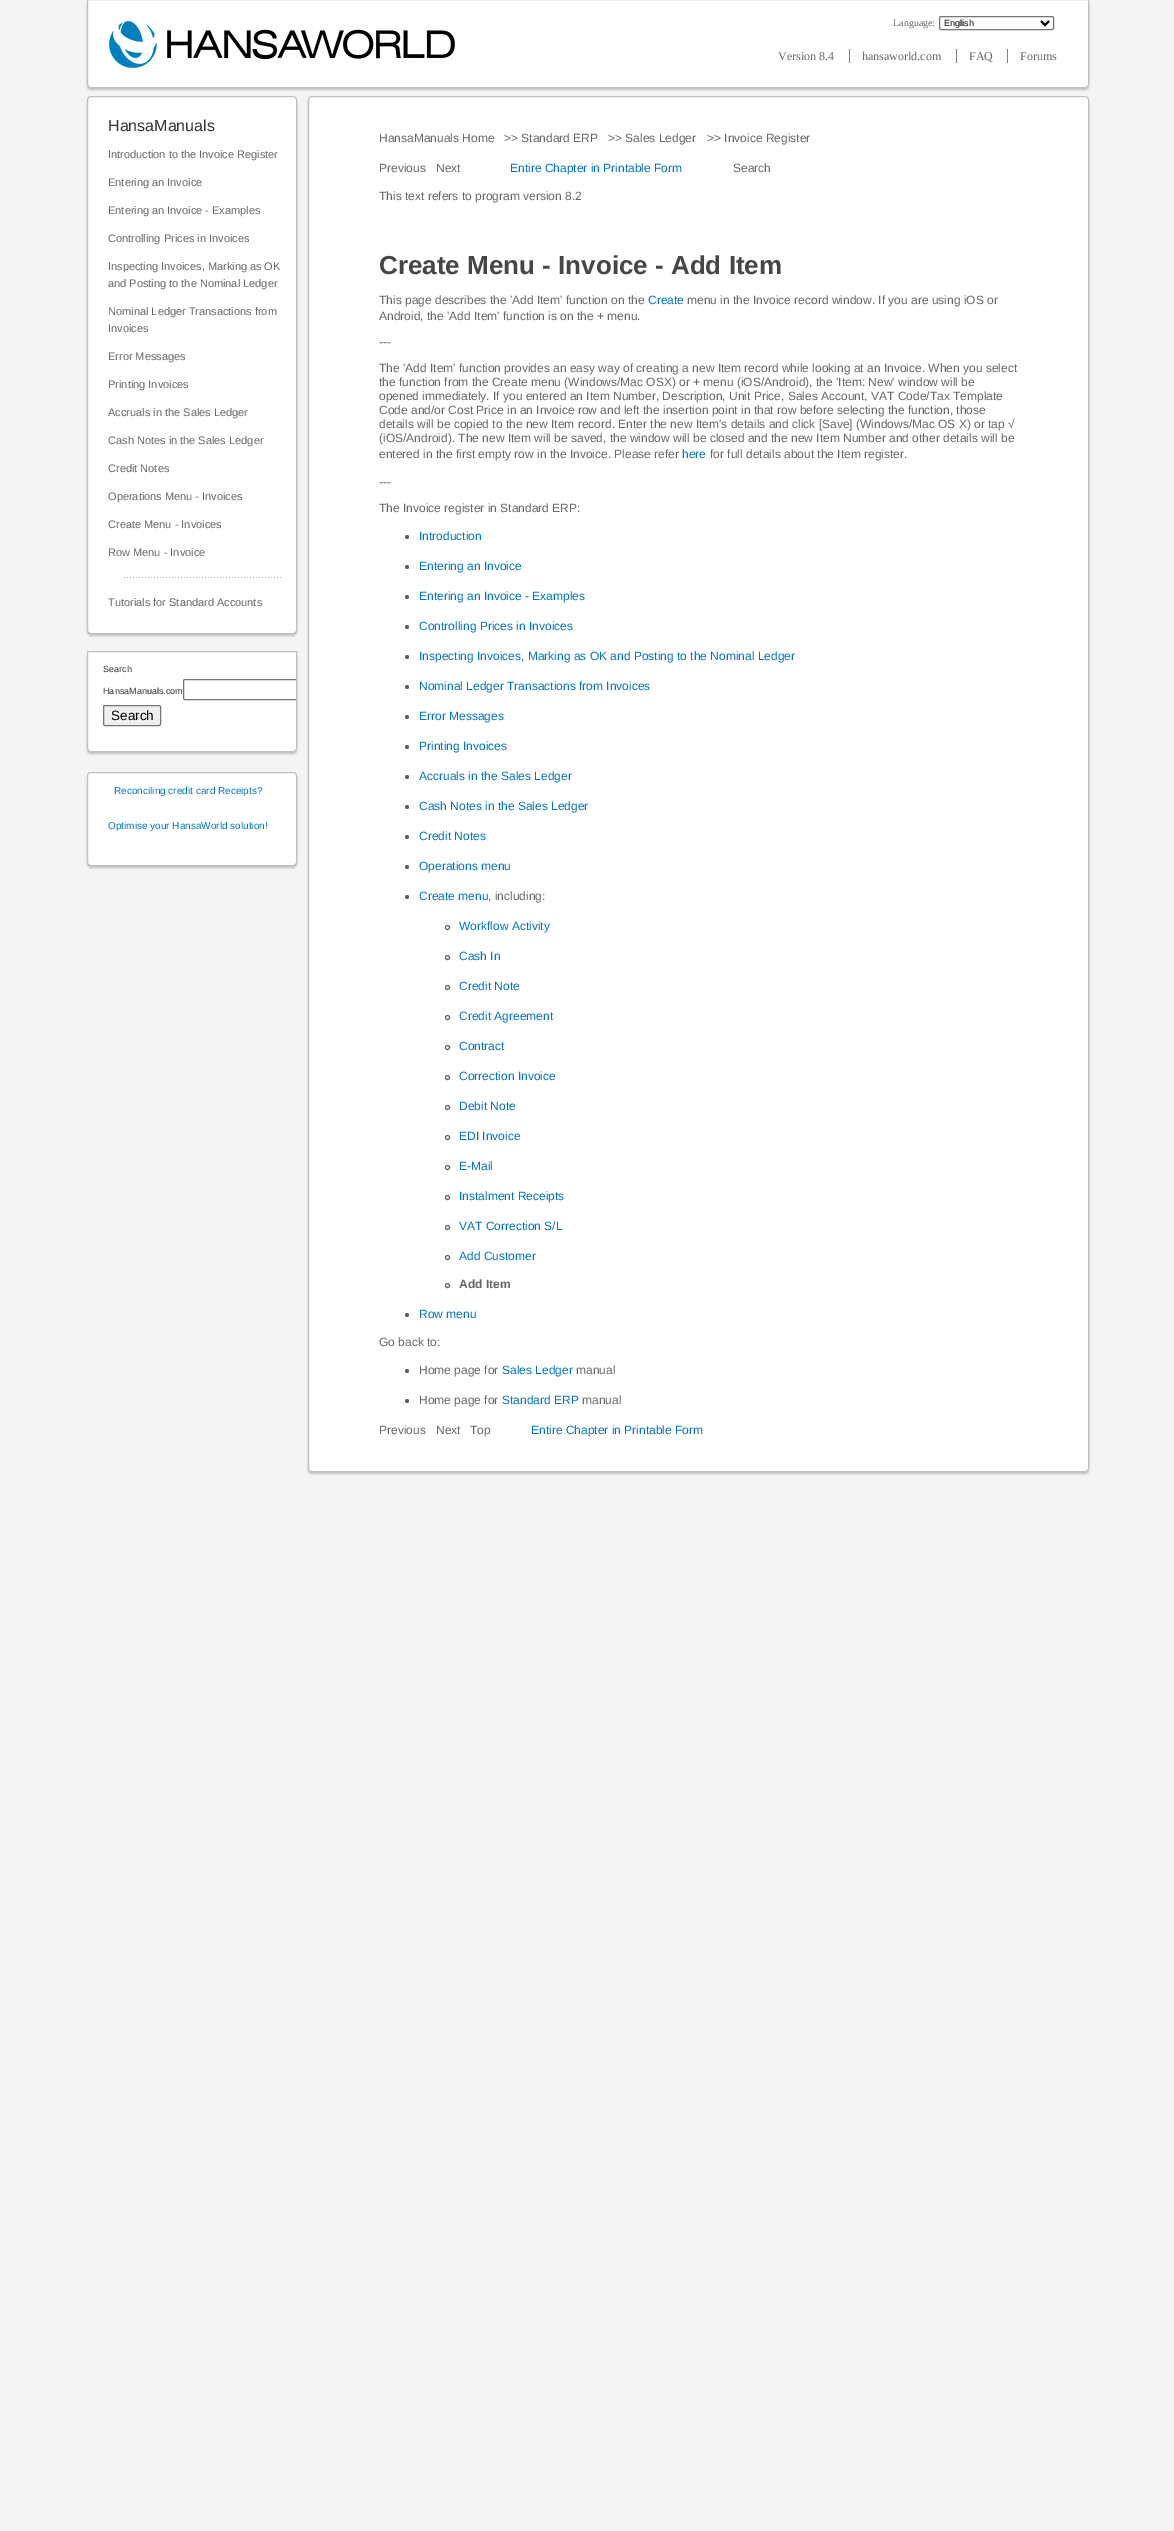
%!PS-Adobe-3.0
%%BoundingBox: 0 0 1174 2531
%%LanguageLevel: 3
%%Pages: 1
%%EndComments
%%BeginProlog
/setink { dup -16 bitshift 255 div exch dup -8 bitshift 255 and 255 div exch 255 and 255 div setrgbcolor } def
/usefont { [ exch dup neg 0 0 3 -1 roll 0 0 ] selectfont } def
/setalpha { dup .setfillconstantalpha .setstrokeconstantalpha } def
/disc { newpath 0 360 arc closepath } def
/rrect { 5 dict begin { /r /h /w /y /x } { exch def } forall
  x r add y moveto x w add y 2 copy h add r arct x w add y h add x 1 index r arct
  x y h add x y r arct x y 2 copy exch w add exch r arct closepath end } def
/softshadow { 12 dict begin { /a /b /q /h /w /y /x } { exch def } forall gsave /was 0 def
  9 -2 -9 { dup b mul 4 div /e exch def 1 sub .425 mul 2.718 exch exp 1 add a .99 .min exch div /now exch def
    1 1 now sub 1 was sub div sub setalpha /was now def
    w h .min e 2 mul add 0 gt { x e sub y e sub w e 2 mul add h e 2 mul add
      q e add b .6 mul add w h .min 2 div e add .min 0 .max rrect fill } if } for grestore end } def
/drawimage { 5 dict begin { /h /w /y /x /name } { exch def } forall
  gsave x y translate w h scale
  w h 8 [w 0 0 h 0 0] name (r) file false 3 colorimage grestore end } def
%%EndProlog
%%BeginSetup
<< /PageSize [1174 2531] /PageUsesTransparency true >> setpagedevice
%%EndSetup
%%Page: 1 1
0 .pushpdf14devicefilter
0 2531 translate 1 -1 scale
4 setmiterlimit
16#F5F4F4 setink
0 0 1174 2531 rectfill
16#BFBFBF setink
87 1 1002 89 4 1 1 softshadow
16#FFFFFF setink
87.5 -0.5 moveto 1088.5 -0.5 lineto 1088.5 84 lineto 1088.5 86 1087 87.5 1085 87.5 curveto 91 87.5 lineto 89 87.5 87.5 86 87.5 84 curveto closepath gsave fill grestore
16#C2C0BD setink
stroke
(img1.raw) 109 21 346 47 drawimage
/LiberationSerif-Regular 10 usefont
16#666666 setink
893 26 moveto (Language:) show
16#767676 setink
939.5 16.5 114 13 1.5 rrect stroke
16#000000 setink
2 setlinewidth
1041 21 moveto 1045 25 lineto 1049 21 lineto stroke
/LiberationSans-Regular 9 usefont
944 26 moveto (English) show
/LiberationSerif-Regular 12 usefont
16#666666 setink
778 60 moveto (Version 8.4) show
862 60 moveto (hansaworld.com) show
16#828282 setink
849 49 1 14 rectfill
16#666666 setink
969 60 moveto (FAQ) show
16#828282 setink
956 49 1 14 rectfill
16#666666 setink
1020 60 moveto (Forums) show
16#828282 setink
1007 49 1 14 rectfill
16#BFBFBF setink
87 98 210 538 4 1 1 softshadow
16#FFFFFF setink
87.5 96.5 209 537 3.5 rrect gsave fill grestore
16#C2C0BD setink
1 setlinewidth
stroke
/LiberationSans-Regular 16 usefont
16#333333 setink
108 131 moveto (HansaManuals) show
/LiberationSans-Regular 11 usefont
16#666666 setink
[
    [(Introduction to the Invoice Register) 108 158]
    [(Entering an Invoice) 108 186]
    [(Entering an Invoice - Examples) 108 214]
    [(Controlling Prices in Invoices) 108 242]
    [(Inspecting Invoices, Marking as OK) 108 270]
    [(and Posting to the Nominal Ledger) 108 287]
    [(Nominal Ledger Transactions from) 108 315]
    [(Invoices) 108 332]
    [(Error Messages) 108 360]
    [(Printing Invoices) 108 388]
    [(Accruals in the Sales Ledger) 108 416]
    [(Cash Notes in the Sales Ledger) 108 444]
    [(Credit Notes) 108 472]
    [(Operations Menu - Invoices) 108 500]
    [(Create Menu - Invoices) 108 528]
    [(Row Menu - Invoice) 108 556]
] { aload pop moveto show } forall
(img2.raw) 124 577 157 1 drawimage
108 606 moveto (Tutorials for Standard Accounts) show
16#BFBFBF setink
87 653 210 101 4 1 1 softshadow
16#FFFFFF setink
87.5 651.5 moveto 296.5 651.5 lineto 296.5 748 lineto 296.5 750 295 751.5 293 751.5 curveto 91 751.5 lineto 89 751.5 87.5 750 87.5 748 curveto closepath gsave fill grestore
16#C2C0BD setink
stroke
/LiberationSans-Regular 9 usefont
16#333333 setink
103 672 moveto (Search) show
103 694 moveto (HansaManuals.com) show
16#BFBFBF setink
308 98 781 1376 4 1 1 softshadow
16#FFFFFF setink
308.5 96.5 780 1375 3.5 rrect gsave fill grestore
16#C2C0BD setink
stroke
gsave
103 664 193 62 rectclip
16#767676 setink
183.5 679.5 160 20 1.5 rrect stroke
grestore
16#EFEFEF setink
103.5 705.5 57 20 1.5 rrect gsave fill grestore
16#767676 setink
stroke
/LiberationSans-Regular 13.5 usefont
16#000000 setink
111 720 moveto (Search) show
16#BFBFBF setink
87 774 210 94 4 1 1 softshadow
16#FFFFFF setink
87.5 772.5 209 93 3.5 rrect gsave fill grestore
16#C2C0BD setink
stroke
/LiberationSans-Regular 10 usefont
16#0072C7 setink
114 794 moveto (Reconciling credit card Receipts?) show
108 829 moveto (Optimise your HansaWorld solution!) show
/LiberationSans-Regular 12 usefont
16#666666 setink
[
    [(HansaManuals Home) 379 142]
    [(>> Standard ERP) 504 142]
    [(>> Sales Ledger) 608 142]
    [(>> Invoice Register) 707 142]
    [(Previous) 379 172]
    [(Next) 436 172]
] { aload pop moveto show } forall
16#0072C7 setink
510 172 moveto (Entire Chapter in Printable Form) show
16#666666 setink
733 172 moveto (Search) show
379 200 moveto (This text refers to program version 8.2) show
/LiberationSans-Bold 26 usefont
16#464646 setink
379 274 moveto (Create Menu - Invoice - Add Item) show
/LiberationSans-Regular 12 usefont
16#666666 setink
379 304 moveto (This page describes the 'Add Item' function on the) show
16#0072C7 setink
648 304 moveto (Create) show
16#666666 setink
[
    [(menu in the Invoice record window. If you are using iOS or) 687 304]
    [(Android, the 'Add Item' function is on the + menu.) 379 320]
    [(---) 379 346]
    [(The 'Add Item' function provides an easy way of creating a new Item record while looking at an Invoice. When you select) 379 372]
    [(the function from the Create menu \(Windows/Mac OSX\) or + menu \(iOS/Android\), the 'Item: New' window will be) 379 386]
    [(opened immediately. If you entered an Item Number, Description, Unit Price, Sales Account, VAT Code/Tax Template) 379 400]
    [(Code and/or Cost Price in an Invoice row and left the insertion point in that row before selecting the function, those) 379 414]
    [(details will be copied to the new Item record. Enter the new Item's details and click [Save] \(Windows/Mac OS X\) or tap √) 379 428]
    [(\(iOS/Android\). The new Item will be saved, the window will be closed and the new Item Number and other details will be) 379 442]
    [(entered in the first empty row in the Invoice. Please refer) 379 458]
] { aload pop moveto show } forall
16#0072C7 setink
682 458 moveto (here) show
16#666666 setink
[
    [(for full details about the Item register.) 710 458]
    [(---) 379 486]
    [(The Invoice register in Standard ERP:) 379 512]
] { aload pop moveto show } forall
16#616161 setink
407 537 2 disc fill
16#0072C7 setink
419 540 moveto (Introduction) show
16#616161 setink
407 567 2 disc fill
16#0072C7 setink
419 570 moveto (Entering an Invoice) show
16#616161 setink
407 597 2 disc fill
16#0072C7 setink
419 600 moveto (Entering an Invoice - Examples) show
16#616161 setink
407 627 2 disc fill
16#0072C7 setink
419 630 moveto (Controlling Prices in Invoices) show
16#616161 setink
407 657 2 disc fill
16#0072C7 setink
419 660 moveto (Inspecting Invoices, Marking as OK and Posting to the Nominal Ledger) show
16#616161 setink
407 687 2 disc fill
16#0072C7 setink
419 690 moveto (Nominal Ledger Transactions from Invoices) show
16#616161 setink
407 717 2 disc fill
16#0072C7 setink
419 720 moveto (Error Messages) show
16#616161 setink
407 747 2 disc fill
16#0072C7 setink
419 750 moveto (Printing Invoices) show
16#616161 setink
407 777 2 disc fill
16#0072C7 setink
419 780 moveto (Accruals in the Sales Ledger) show
16#616161 setink
407 807 2 disc fill
16#0072C7 setink
419 810 moveto (Cash Notes in the Sales Ledger) show
16#616161 setink
407 837 2 disc fill
16#0072C7 setink
419 840 moveto (Credit Notes) show
16#616161 setink
407 867 2 disc fill
16#0072C7 setink
419 870 moveto (Operations menu) show
16#616161 setink
407 897 2 disc fill
16#0072C7 setink
419 900 moveto (Create menu) show
16#666666 setink
488 900 moveto (, including:) show
16#616161 setink
447.5 927.5 2 disc stroke
16#0072C7 setink
459 930 moveto (Workflow Activity) show
16#616161 setink
447.5 957.5 2 disc stroke
16#0072C7 setink
459 960 moveto (Cash In) show
16#616161 setink
447.5 987.5 2 disc stroke
16#0072C7 setink
459 990 moveto (Credit Note) show
16#616161 setink
447.5 1017.5 2 disc stroke
16#0072C7 setink
459 1020 moveto (Credit Agreement) show
16#616161 setink
447.5 1047.5 2 disc stroke
16#0072C7 setink
459 1050 moveto (Contract) show
16#616161 setink
447.5 1077.5 2 disc stroke
16#0072C7 setink
459 1080 moveto (Correction Invoice) show
16#616161 setink
447.5 1107.5 2 disc stroke
16#0072C7 setink
459 1110 moveto (Debit Note) show
16#616161 setink
447.5 1137.5 2 disc stroke
16#0072C7 setink
459 1140 moveto (EDI Invoice) show
16#616161 setink
447.5 1167.5 2 disc stroke
16#0072C7 setink
459 1170 moveto (E-Mail) show
16#616161 setink
447.5 1197.5 2 disc stroke
16#0072C7 setink
459 1200 moveto (Instalment Receipts) show
16#616161 setink
447.5 1227.5 2 disc stroke
16#0072C7 setink
459 1230 moveto (VAT Correction S/L) show
16#616161 setink
447.5 1257.5 2 disc stroke
16#0072C7 setink
459 1260 moveto (Add Customer) show
16#616161 setink
447.5 1285.5 2 disc stroke
/LiberationSans-Bold 12 usefont
16#666666 setink
459 1288 moveto (Add Item) show
16#616161 setink
407 1315 2 disc fill
/LiberationSans-Regular 12 usefont
16#0072C7 setink
419 1318 moveto (Row menu) show
16#666666 setink
379 1346 moveto (Go back to:) show
16#616161 setink
407 1371 2 disc fill
16#666666 setink
419 1374 moveto (Home page for) show
16#0072C7 setink
502 1374 moveto (Sales Ledger) show
16#666666 setink
576 1374 moveto (manual) show
16#616161 setink
407 1401 2 disc fill
16#666666 setink
419 1404 moveto (Home page for) show
16#0072C7 setink
502 1404 moveto (Standard ERP) show
16#666666 setink
[
    [(manual) 582 1404]
    [(Previous) 379 1434]
    [(Next) 436 1434]
    [(Top) 470 1434]
] { aload pop moveto show } forall
16#0072C7 setink
531 1434 moveto (Entire Chapter in Printable Form) show
.poppdf14devicefilter showpage
%%EOF
